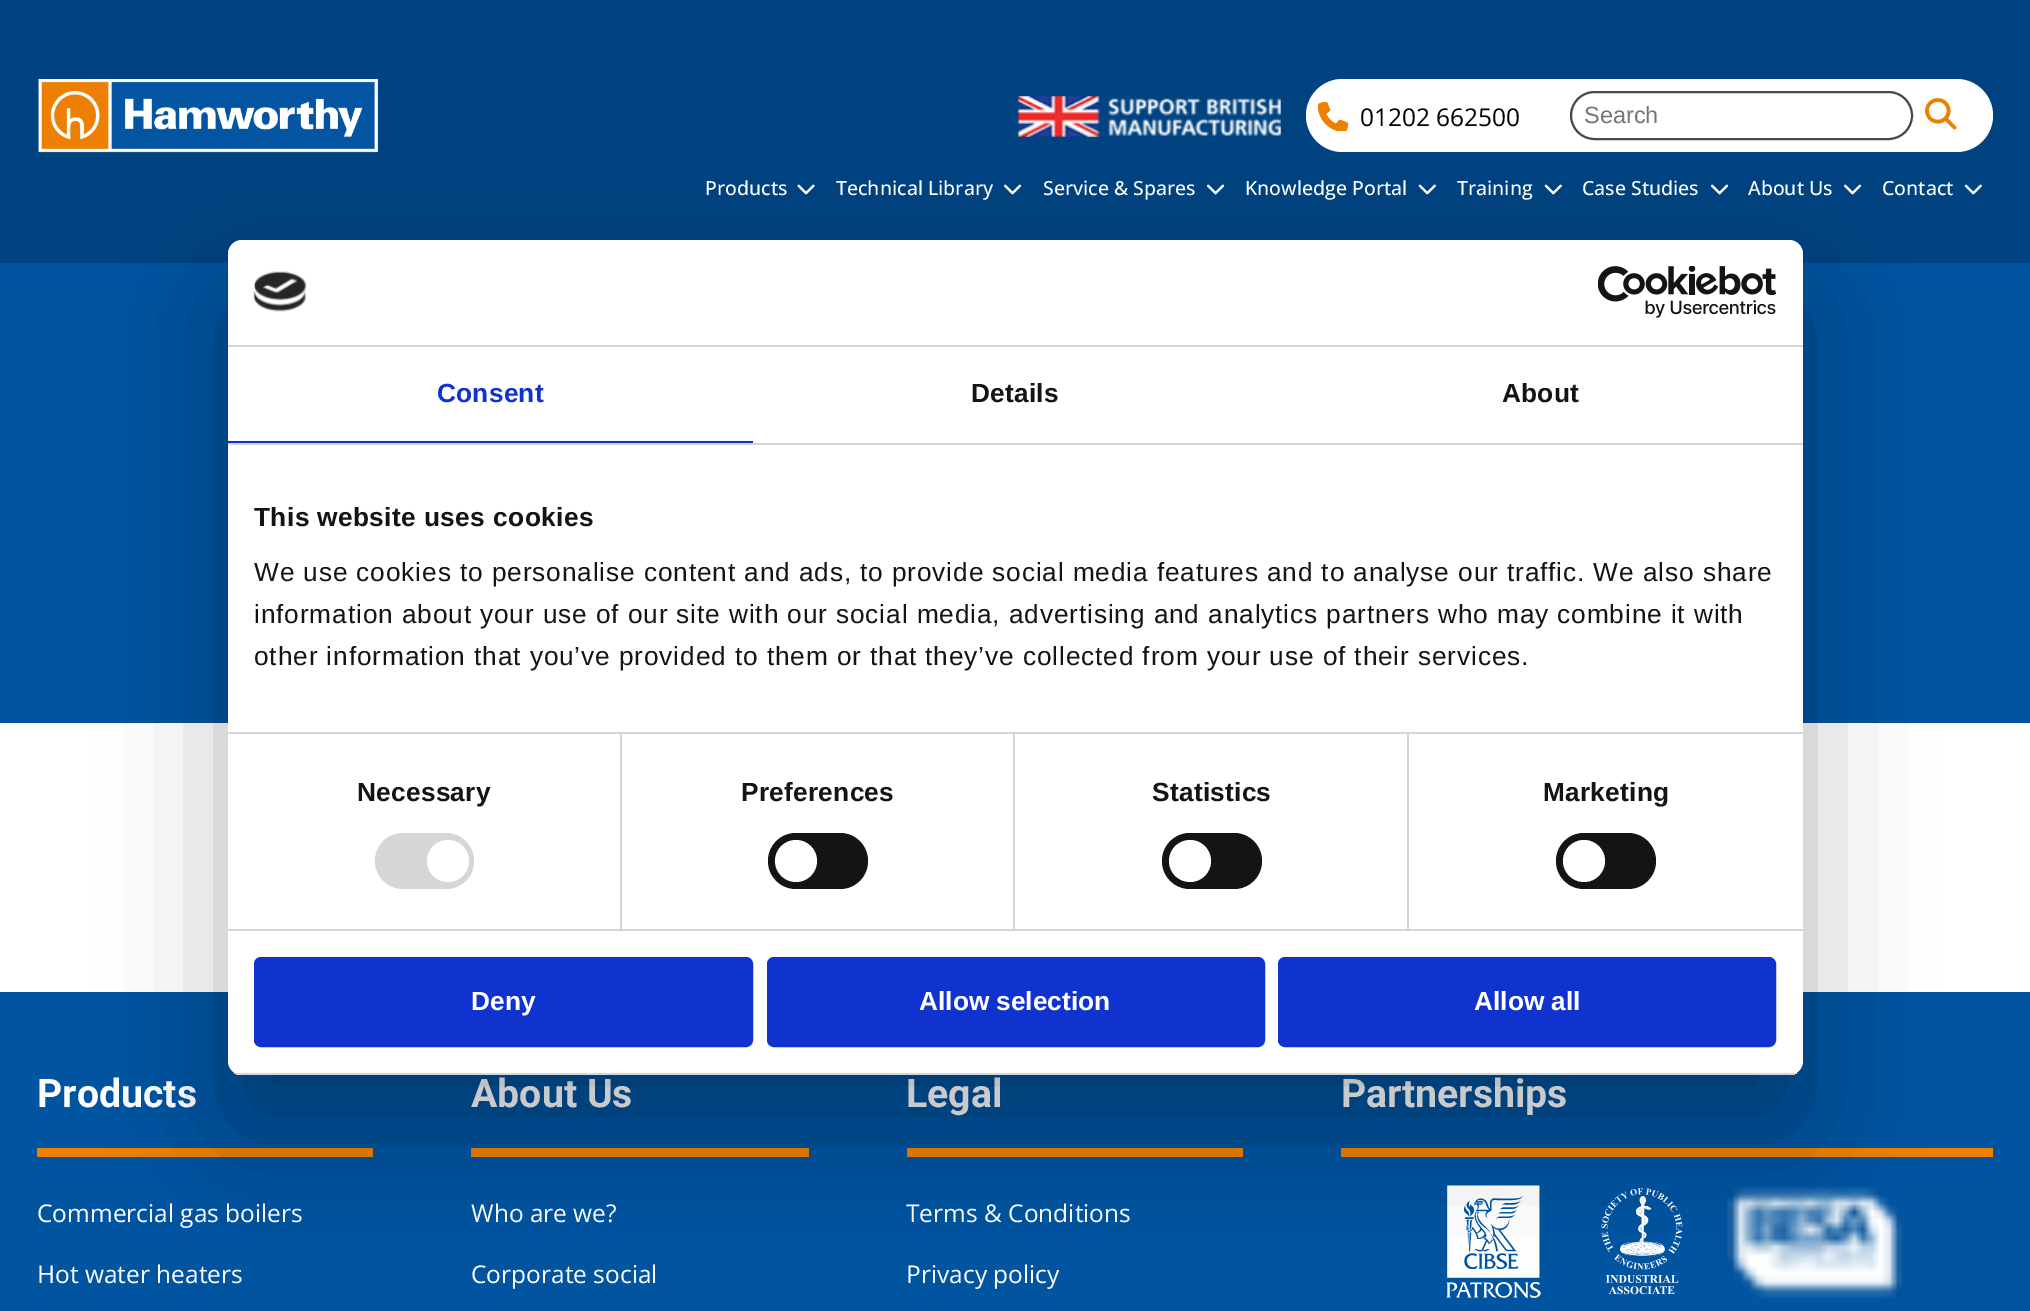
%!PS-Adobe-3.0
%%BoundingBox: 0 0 2030 1311
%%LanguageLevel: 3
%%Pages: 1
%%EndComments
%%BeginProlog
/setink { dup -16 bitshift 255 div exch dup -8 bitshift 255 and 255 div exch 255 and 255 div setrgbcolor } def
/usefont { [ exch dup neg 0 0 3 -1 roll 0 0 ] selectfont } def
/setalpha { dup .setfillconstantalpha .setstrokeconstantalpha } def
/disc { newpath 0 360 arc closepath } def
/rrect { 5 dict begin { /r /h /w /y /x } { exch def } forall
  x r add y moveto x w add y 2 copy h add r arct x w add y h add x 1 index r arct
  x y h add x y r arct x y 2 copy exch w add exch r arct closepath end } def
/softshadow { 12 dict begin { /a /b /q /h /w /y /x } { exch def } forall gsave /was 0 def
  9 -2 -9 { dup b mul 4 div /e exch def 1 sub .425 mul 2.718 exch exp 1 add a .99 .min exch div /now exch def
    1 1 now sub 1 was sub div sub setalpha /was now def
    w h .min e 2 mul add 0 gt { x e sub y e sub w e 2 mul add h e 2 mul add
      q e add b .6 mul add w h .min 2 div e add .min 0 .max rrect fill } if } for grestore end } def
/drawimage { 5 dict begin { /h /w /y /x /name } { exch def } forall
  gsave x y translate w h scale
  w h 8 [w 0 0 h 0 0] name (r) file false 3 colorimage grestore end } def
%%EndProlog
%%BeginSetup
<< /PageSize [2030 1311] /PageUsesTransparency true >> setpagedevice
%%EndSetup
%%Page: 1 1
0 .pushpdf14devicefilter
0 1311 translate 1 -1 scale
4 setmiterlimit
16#FFFFFF setink
0 0 2030 1311 rectfill
16#004380 setink
0 0 2030 263 rectfill
(img1.raw) 38 79 340 74 drawimage
(img2.raw) 1017 96 264 41 drawimage
16#FFFFFF setink
1306 79 687 73 36.5 rrect fill
(img3.raw) 1318 102 30 29 drawimage
/OpenSans-Regular 24.5 usefont
16#000000 setink
1360 126 moveto (01202 662500) show
16#494949 setink
2 setlinewidth
1571 92 341 47 23.5 rrect stroke
/LiberationSans-Regular 23.5 usefont
16#757575 setink
1584 123 moveto (Search) show
(img4.raw) 1925 98 32 32 drawimage
/OpenSans-Medium 19.5 usefont
16#FFFFFF setink
705 195 moveto (Products) show
(img5.raw) 797 184 18 11 drawimage
836 195 moveto (Technical Library) show
(img6.raw) 1004 184 18 11 drawimage
1043 195 moveto (Service & Spares) show
(img6.raw) 1207 184 18 11 drawimage
1245 195 moveto (Knowledge Portal) show
(img7.raw) 1418 184 18 11 drawimage
1457 195 moveto (Training) show
(img7.raw) 1544 184 18 11 drawimage
1582 195 moveto (Case Studies) show
(img6.raw) 1711 184 18 11 drawimage
1748 195 moveto (About Us) show
(img6.raw) 1844 184 18 11 drawimage
1882 195 moveto (Contact) show
(img7.raw) 1964 184 18 11 drawimage
[
    [0 263 2030 460 16#0054A0]
    [0 992 2030 319 16#0054A0]
    [37 1148 336 9 16#ED8000]
] { aload pop setink rectfill } forall
/Roboto-Bold 39.25 usefont
16#FFFFFF setink
37 1107 moveto (Products) show
/OpenSans-Regular 24.5 usefont
37 1222 moveto (Commercial gas boilers) show
37 1283 moveto (Hot water heaters) show
16#ED8000 setink
471 1148 338 9 rectfill
/Roboto-Bold 39.25 usefont
16#FFFFFF setink
471 1107 moveto (About Us) show
/OpenSans-Regular 24.5 usefont
471 1222 moveto (Who are we?) show
471 1283 moveto (Corporate social) show
16#ED8000 setink
907 1148 336 9 rectfill
/Roboto-Bold 39.25 usefont
16#FFFFFF setink
906 1107 moveto (Legal) show
/OpenSans-Regular 24.5 usefont
906 1222 moveto (Terms & Conditions) show
906 1283 moveto (Privacy policy) show
16#ED8000 setink
1341 1148 652 9 rectfill
/Roboto-Bold 39.25 usefont
16#FFFFFF setink
1341 1107 moveto (Partnerships) show
(img8.raw) 1446 1185 95 114 drawimage
(img9.raw) 1601 1188 82 107 drawimage
(img10.raw) 1727 1187 175 112 drawimage
16#000000 setink
228 296 1575 835 14 59.5 0.3 softshadow
16#FFFFFF setink
228 240 1575 835 14 rrect fill
16#D6D6D6 setink
228 345 1575 2 rectfill
(img11.raw) 253 271 54 41 drawimage
(img12.raw) 1598 266 178 52 drawimage
228 443 1575 2 rectfill
16#1032CF setink
228 441 525 2 rectfill
/LiberationSans-Bold 26.25 usefont
437 402 moveto 0.25 0 (Consent) ashow
16#141414 setink
971 402 moveto 0.25 0 (Details) ashow
1502 402 moveto 0.25 0 (About) ashow
[
    [620 733 2 196 16#D6D6D6]
    [1013 733 2 196 16#D6D6D6]
    [1407 733 2 196 16#D6D6D6]
    [228 732 1575 2 16#D6D6D6]
] { aload pop setink rectfill } forall
16#141414 setink
254 526 moveto 0.4 0 (This website uses cookies) ashow
/LiberationSans-Regular 26.25 usefont
254 581 moveto 0.88 0 (We use cookies to personalise content and ads, to provide social media features and to analyse our traffic. We also share) ashow
254 623 moveto 0.88 0 (information about your use of our site with our social media, advertising and analytics partners who may combine it with) ashow
254 665 moveto 0.88 0 (other information that you’ve provided to them or that they’ve collected from your use of their services.) ashow
16#D6D6D6 setink
228 929 1575 2 rectfill
/LiberationSans-Bold 26.25 usefont
16#141414 setink
357 801 moveto 0.25 0 (Necessary) ashow
16#D6D6D6 setink
375 833 99 56 28 rrect fill
16#FFFFFF setink
448 861 21 disc fill
16#141414 setink
741 801 moveto 0.25 0 (Preferences) ashow
768 833 100 56 28 rrect fill
16#FFFFFF setink
796 861 21 disc fill
16#141414 setink
1152 801 moveto 0.25 0 (Statistics) ashow
1162 833 100 56 28 rrect fill
16#FFFFFF setink
1190 861 21 disc fill
16#141414 setink
1543 801 moveto 0.25 0 (Marketing) ashow
1556 833 100 56 28 rrect fill
16#FFFFFF setink
1584 861 21 disc fill
gsave
228 240 1575 835 14 rrect clip newpath
16#D6D6D6 setink
228 1073 1575 2 rectfill
grestore
16#1032CF setink
256 959 495 86 5 rrect gsave fill grestore
4 setlinewidth
stroke
16#FFFFFF setink
471 1010 moveto (Deny) show
16#1032CF setink
769 959 494 86 5 rrect gsave fill grestore
stroke
16#FFFFFF setink
919 1010 moveto (Allow selection) show
16#1032CF setink
1280 959 494 86 5 rrect gsave fill grestore
stroke
16#FFFFFF setink
1474 1010 moveto (Allow all) show
.poppdf14devicefilter showpage
%%EOF
